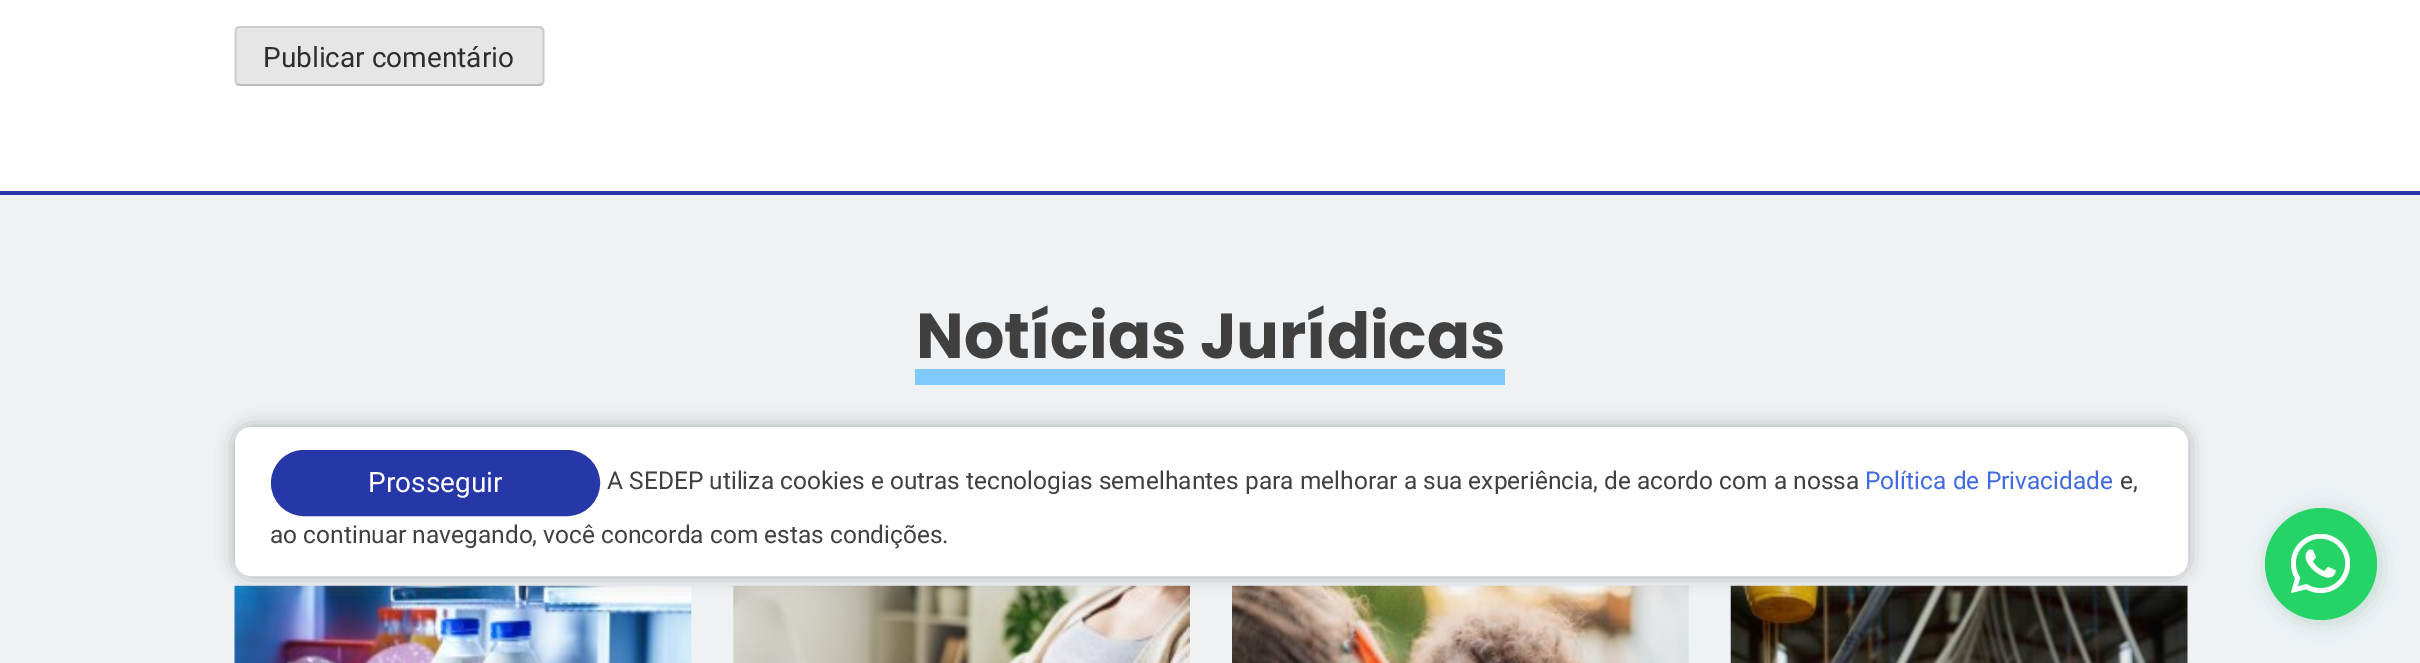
%!PS-Adobe-3.0
%%BoundingBox: 0 0 2420 663
%%LanguageLevel: 3
%%Pages: 1
%%EndComments
%%BeginProlog
/setink { dup -16 bitshift 255 div exch dup -8 bitshift 255 and 255 div exch 255 and 255 div setrgbcolor } def
/usefont { [ exch dup neg 0 0 3 -1 roll 0 0 ] selectfont } def
/setalpha { dup .setfillconstantalpha .setstrokeconstantalpha } def
/disc { newpath 0 360 arc closepath } def
/rrect { 5 dict begin { /r /h /w /y /x } { exch def } forall
  x r add y moveto x w add y 2 copy h add r arct x w add y h add x 1 index r arct
  x y h add x y r arct x y 2 copy exch w add exch r arct closepath end } def
/softshadow { 12 dict begin { /a /b /q /h /w /y /x } { exch def } forall gsave /was 0 def
  9 -2 -9 { dup b mul 4 div /e exch def 1 sub .425 mul 2.718 exch exp 1 add a .99 .min exch div /now exch def
    1 1 now sub 1 was sub div sub setalpha /was now def
    w h .min e 2 mul add 0 gt { x e sub y e sub w e 2 mul add h e 2 mul add
      q e add b .6 mul add w h .min 2 div e add .min 0 .max rrect fill } if } for grestore end } def
/drawimage { 5 dict begin { /h /w /y /x /name } { exch def } forall
  gsave x y translate w h scale
  w h 8 [w 0 0 h 0 0] name (r) file false 3 colorimage grestore end } def
%%EndProlog
%%BeginSetup
<< /PageSize [2420 663] /PageUsesTransparency true >> setpagedevice
%%EndSetup
%%Page: 1 1
0 .pushpdf14devicefilter
0 663 translate 1 -1 scale
4 setmiterlimit
16#FFFFFF setink
0 0 2420 663 rectfill
16#E6E6E6 setink
235 26 309 60 5 rrect fill
16#BBBBBB setink
1.8 setlinewidth
542 83.5 moveto 541.5 84.5 540 85 539 85 curveto 240 85 lineto 238.5 85 237.5 84.5 236.5 83.5 curveto stroke
16#CCCCCC setink
236.5 83.5 moveto 236 83 235.5 81.5 235.5 80.5 curveto 235.5 31.5 lineto 235.5 30.5 236 29 236.5 28.5 curveto 237.5 27.5 238.5 27 240 27 curveto 539 27 lineto 540 27 541.5 27.5 542 28.5 curveto 543 29 543.5 30.5 543.5 31.5 curveto 543.5 80.5 lineto 543.5 81.5 543 83 542 83.5 curveto stroke
/Roboto-Regular 28 usefont
16#2E2E2E setink
263 67 moveto (Publicar comentário) show
16#EEF2F5 setink
0 195 2420 468 rectfill
16#2638A8 setink
0 191 2420 4 rectfill
/Poppins-Bold 63.5 usefont
16#404040 setink
916 358 moveto (Notícias Jurídicas) show
16#80CAFB setink
915 369 590 16 rectfill
(img1.raw) 234 585 458 78 drawimage
(img2.raw) 733 585 457 78 drawimage
(img3.raw) 1232 585 457 78 drawimage
(img4.raw) 1730 585 458 78 drawimage
16#AAAAAA setink
235 427 1953 149 16 9 1 softshadow
16#FFFFFF setink
236 428 1951 147 15 rrect gsave fill grestore
2 setlinewidth
stroke
16#2638A8 setink
272 451 327 64 32 rrect gsave fill grestore
stroke
/Roboto-Regular 28 usefont
16#FFFFFF setink
368 492 moveto (Prosseguir) show
/Roboto-Regular 24.5 usefont
16#404040 setink
607 489 moveto (A SEDEP utiliza cookies e outras tecnologias semelhantes para melhorar a sua experiência, de acordo com a nossa) show
16#4169E1 setink
1865 489 moveto (Política de Privacidade) show
16#404040 setink
2120 489 moveto (e,) show
270 543 moveto (ao continuar navegando, você concorda com estas condições.) show
16#167C3C setink
2268 511 112 112 56 10.5 0.2 softshadow
16#25D366 setink
2321 564 56 disc fill
(img5.raw) 2291 534 59 59 drawimage
.poppdf14devicefilter showpage
%%EOF
